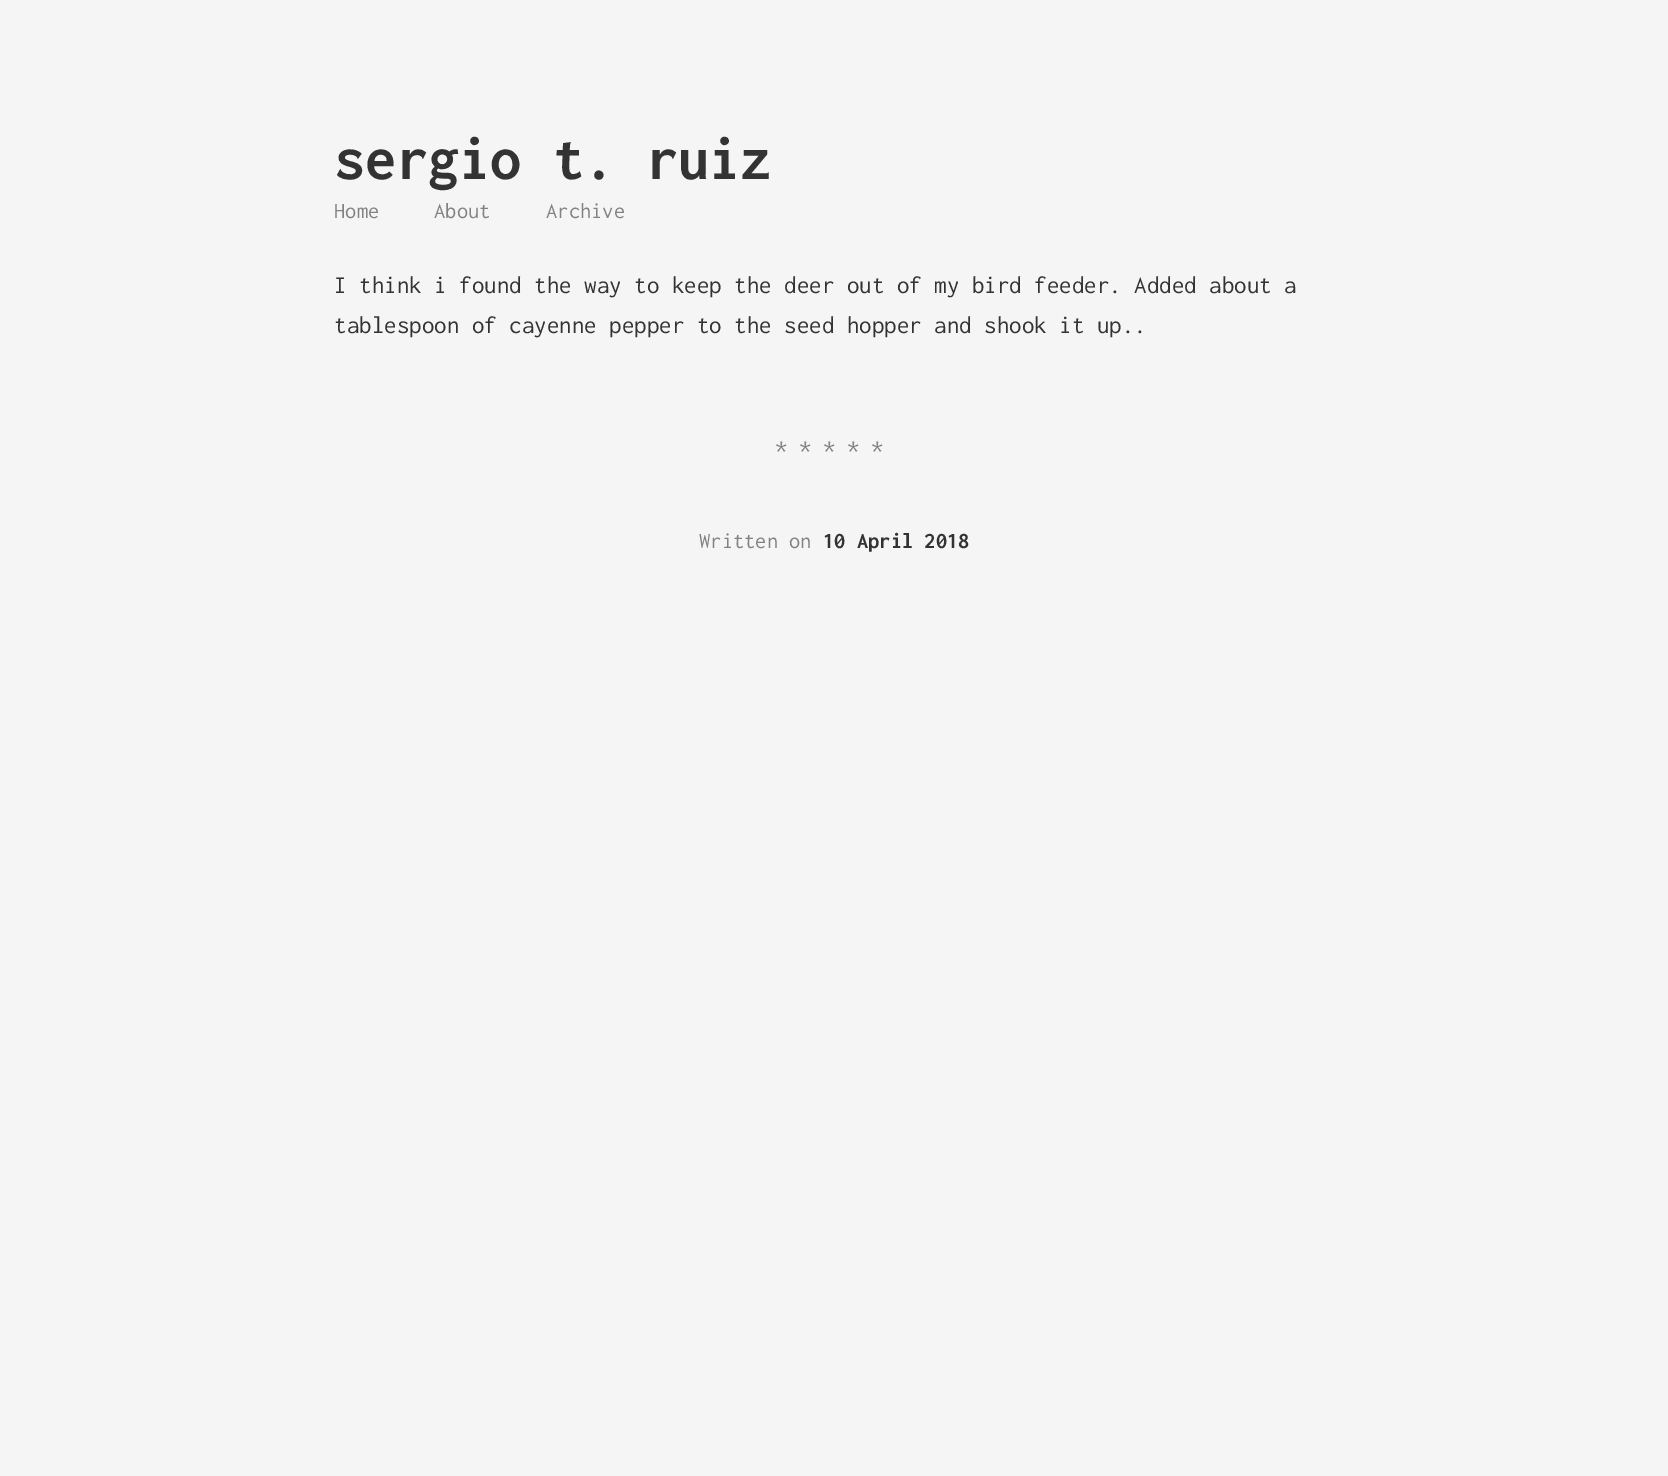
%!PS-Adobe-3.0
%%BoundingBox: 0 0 1668 1476
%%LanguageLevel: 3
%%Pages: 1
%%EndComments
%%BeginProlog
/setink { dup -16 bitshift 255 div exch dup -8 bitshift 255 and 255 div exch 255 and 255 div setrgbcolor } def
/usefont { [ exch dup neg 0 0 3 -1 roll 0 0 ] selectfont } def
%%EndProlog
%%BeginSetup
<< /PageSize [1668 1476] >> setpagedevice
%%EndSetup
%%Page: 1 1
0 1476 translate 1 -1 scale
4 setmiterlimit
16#F5F5F5 setink
0 0 1668 1476 rectfill
/Inconsolata-Bold 62.5 usefont
16#333333 setink
334 179 moveto (sergio t. ruiz) show
/Inconsolata-Regular 22.5 usefont
16#828282 setink
[
    [(Home) 334 218]
    [(About) 434 218]
    [(Archive) 546 218]
] { aload pop moveto show } forall
/Inconsolata-Regular 25 usefont
16#333333 setink
334 293 moveto (I think i found the way to keep the deer out of my bird feeder. Added about a) show
334 333 moveto (tablespoon of cayenne pepper to the seed hopper and shook it up..) show
16#828282 setink
775 455 moveto 11.5 0 (*****) ashow
/Inconsolata-Regular 22.5 usefont
699 548 moveto (Written on) show
/Inconsolata-Bold 22.5 usefont
16#333333 setink
823 548 moveto (10 April 2018) show
showpage
%%EOF
